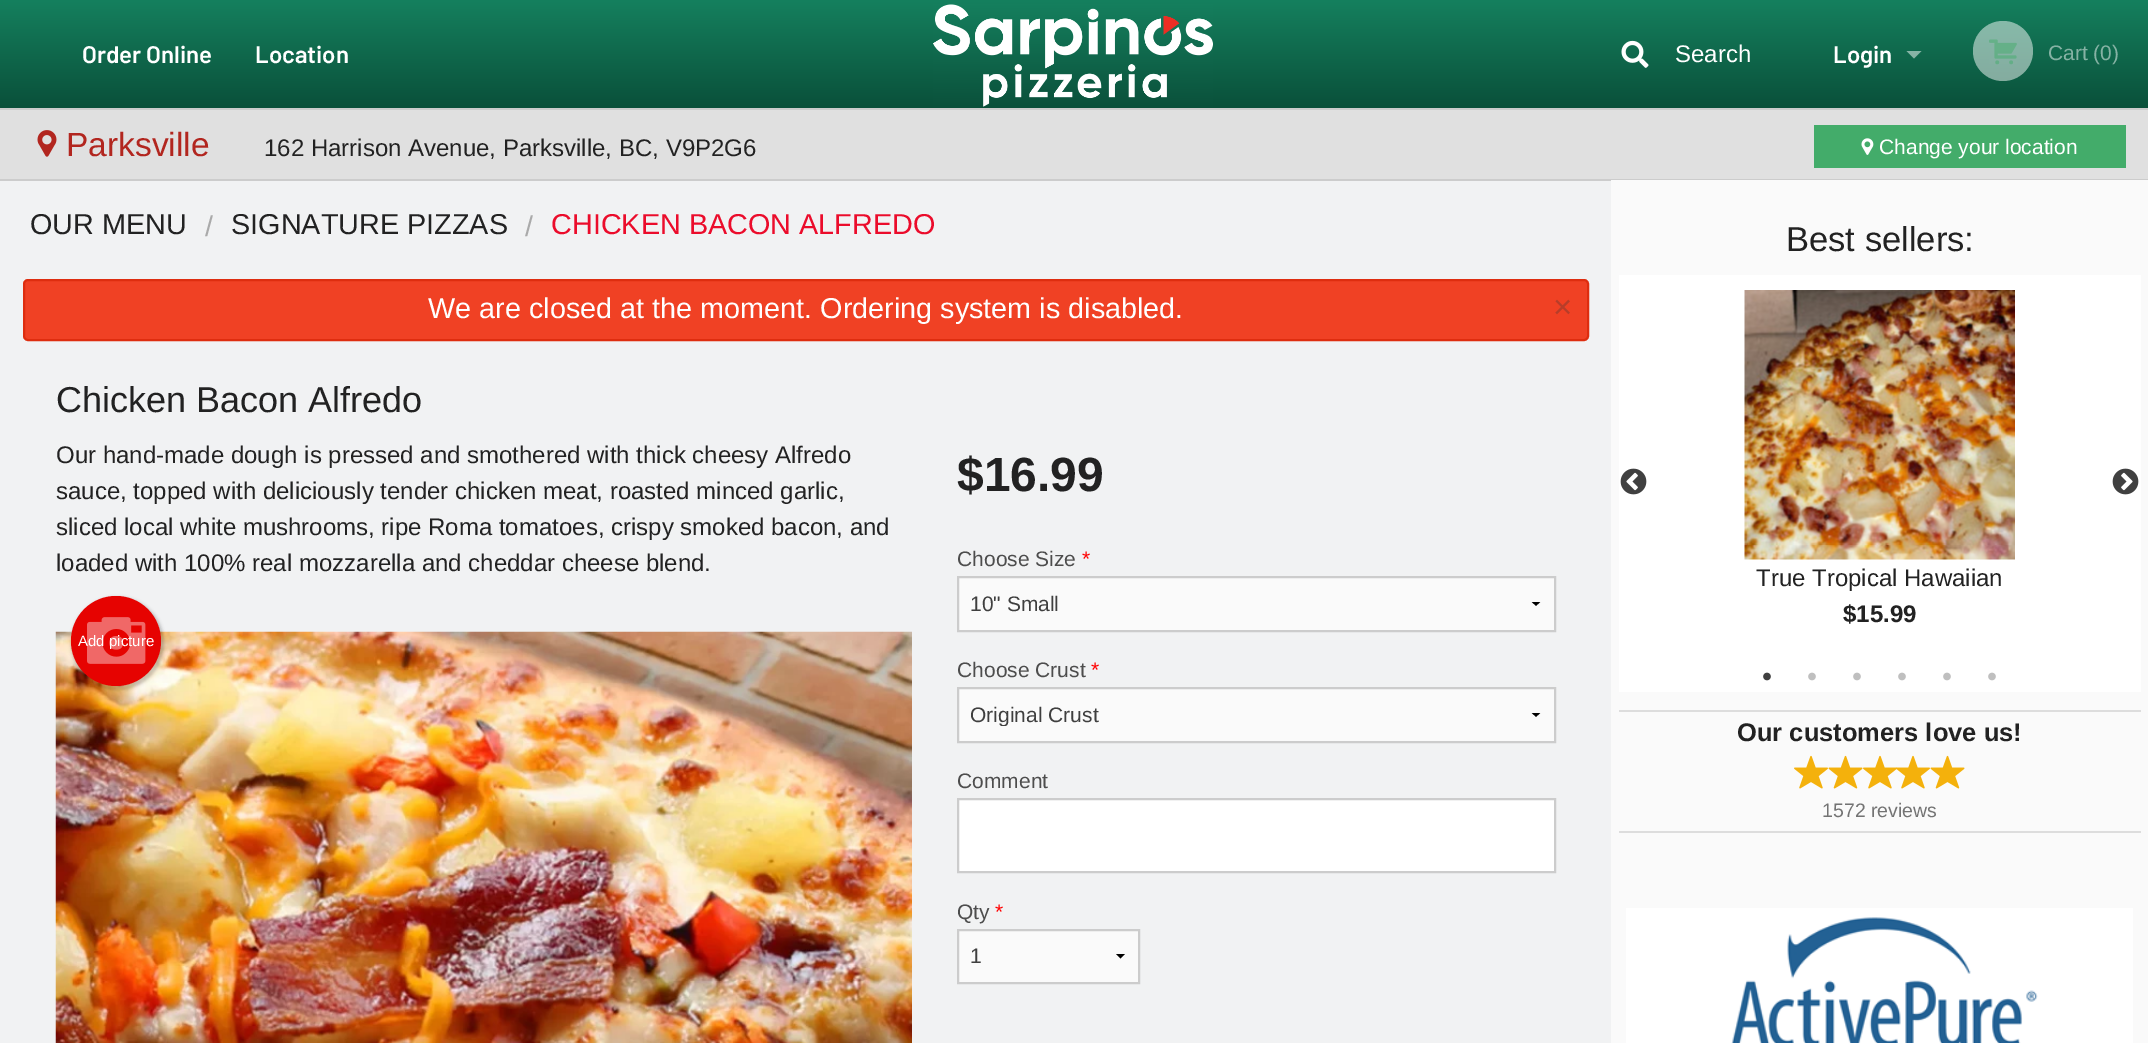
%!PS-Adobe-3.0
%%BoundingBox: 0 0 2148 1043
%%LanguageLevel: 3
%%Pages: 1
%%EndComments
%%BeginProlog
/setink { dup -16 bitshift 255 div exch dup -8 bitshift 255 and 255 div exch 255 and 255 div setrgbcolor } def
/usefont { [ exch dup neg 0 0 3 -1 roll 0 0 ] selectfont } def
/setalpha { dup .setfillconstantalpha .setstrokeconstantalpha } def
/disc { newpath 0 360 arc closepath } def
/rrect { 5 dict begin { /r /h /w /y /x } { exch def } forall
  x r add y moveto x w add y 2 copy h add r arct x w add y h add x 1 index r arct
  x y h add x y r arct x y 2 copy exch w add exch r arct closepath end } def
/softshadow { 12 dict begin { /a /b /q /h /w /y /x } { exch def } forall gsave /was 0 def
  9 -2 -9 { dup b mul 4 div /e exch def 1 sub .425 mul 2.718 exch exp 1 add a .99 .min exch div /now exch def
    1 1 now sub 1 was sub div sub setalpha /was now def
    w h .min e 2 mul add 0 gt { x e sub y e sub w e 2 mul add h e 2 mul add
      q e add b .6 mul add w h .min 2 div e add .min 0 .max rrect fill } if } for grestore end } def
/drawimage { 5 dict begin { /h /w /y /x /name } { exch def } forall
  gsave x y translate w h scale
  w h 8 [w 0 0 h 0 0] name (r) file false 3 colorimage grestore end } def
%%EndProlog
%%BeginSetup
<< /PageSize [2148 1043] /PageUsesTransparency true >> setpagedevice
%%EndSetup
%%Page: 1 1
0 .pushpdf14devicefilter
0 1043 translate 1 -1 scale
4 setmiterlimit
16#F1F2F3 setink
0 0 2148 1043 rectfill
gsave 0 0 moveto 2148 0 lineto 2148 108 lineto 0 108 lineto closepath clip newpath
<< /ShadingType 2 /ColorSpace /DeviceRGB /Coords [1074 0 1074 108] /Extend [true true] /Function << /FunctionType 2 /Domain [0 1] /C0 [0.082 0.502 0.369] /C1 [0.039 0.314 0.227] /N 1 >> >> shfill grestore
(img1.raw) 933 4 280 103 drawimage
/Barlow-SemiBold 24 usefont
16#FFFFFF setink
82 63 moveto (Order Online) show
255 63 moveto (Location) show
(img2.raw) 1621 40 28 28 drawimage
/LiberationSans-Regular 24 usefont
1675 62 moveto (Search) show
/Barlow-SemiBold 24 usefont
1833 63 moveto (Login) show
0.5 setalpha
1906.5 51 moveto 1921.5 51 lineto 1914 58.5 lineto closepath fill
0.49 setalpha
2003 51 30 disc fill
1 setalpha
(img3.raw) 1989 39 28 26 drawimage
/LiberationSans-Regular 21 usefont
16#85B2A4 setink
2048 60 moveto (Cart \(0\)) show
[
    [0 110 2148 69 16#E0E0E0]
    [0 108 2148 2 16#CCCCCC]
    [0 179 2148 2 16#CCCCCC]
] { aload pop setink rectfill } forall
(img4.raw) 37 130 20 27 drawimage
/LiberationSans-Regular 33.5 usefont
16#B2261F setink
66 156 moveto (Parksville) show
/LiberationSans-Regular 24 usefont
16#222222 setink
264 156 moveto (162 Harrison Avenue, Parksville, BC, V9P2G6) show
16#43AC6A setink
1814 125 312 43 rectfill
(img5.raw) 1861 138 13 17 drawimage
/LiberationSans-Regular 21 usefont
16#FFFFFF setink
1879 154 moveto (Change your location) show
/LiberationSans-Regular 28.8 usefont
16#222222 setink
30 234 moveto (OUR MENU) show
16#AAAAAA setink
205 236 moveto (/) show
16#222222 setink
231 234 moveto (SIGNATURE PIZZAS) show
16#AAAAAA setink
525 236 moveto (/) show
16#EB0C2B setink
551 234 moveto (CHICKEN BACON ALFREDO) show
16#F04124 setink
24 280 1564 60 4 rrect gsave fill grestore
16#DE2D0F setink
2 setlinewidth
stroke
16#FFFFFF setink
428 318 moveto (We are closed at the moment. Ordering system is disabled.) show
/LiberationSans-Regular 33 usefont
16#B73D29 setink
1553 318 moveto (×) show
/LiberationSans-Regular 36 usefont
16#222222 setink
56 412 moveto (Chicken Bacon Alfredo) show
/LiberationSans-Regular 24 usefont
[
    [(Our hand-made dough is pressed and smothered with thick cheesy Alfredo) 56 463]
    [(sauce, topped with deliciously tender chicken meat, roasted minced garlic,) 56 499]
    [(sliced local white mushrooms, ripe Roma tomatoes, crispy smoked bacon, and) 56 535]
    [(loaded with 100% real mozzarella and cheddar cheese blend.) 56 571]
] { aload pop moveto show } forall
(img6.raw) 55 631 857 412 drawimage
16#000000 setink
71 597 93 93 46.5 1.5 0.2 softshadow
16#E60301 setink
116 641 45 disc fill
(img7.raw) 87 617 59 47 drawimage
/LiberationSans-Regular 15 usefont
16#FFFFFF setink
78 646 moveto (Add picture) show
/LiberationSans-Bold 48 usefont
16#222222 setink
957 491 moveto ($16.99) show
/LiberationSans-Regular 21 usefont
16#4D4D4D setink
957 566 moveto (Choose Size) show
16#FF0000 setink
1082 566 moveto (*) show
16#FAFAFA setink
959 578 595 52 rectfill
gsave
1518 602 36 5 rectclip
16#000000 setink
1540.5 601.5 moveto 1536 606 lineto 1531.5 601.5 lineto closepath fill
grestore
16#CCCCCC setink
958 577 597 54 rectstroke
16#3F3F3F setink
970 611 moveto (10" Small) show
16#4D4D4D setink
957 677 moveto (Choose Crust) show
16#FF0000 setink
1091 677 moveto (*) show
16#FAFAFA setink
959 689 595 52 rectfill
gsave
1518 713 36 5 rectclip
16#000000 setink
1540.5 712.5 moveto 1536 717 lineto 1531.5 712.5 lineto closepath fill
grestore
16#CCCCCC setink
958 688 597 54 rectstroke
gsave
971 702 571 24 rectclip
16#3F3F3F setink
970 722 moveto (Original Crust) show
grestore
16#4D4D4D setink
957 788 moveto (Comment) show
16#FFFFFF setink
958 799 moveto 1555 799 lineto 1555 872 lineto 958 872 lineto closepath gsave fill grestore
16#CCCCCC setink
stroke
16#4D4D4D setink
957 919 moveto (Qty) show
16#FF0000 setink
995 919 moveto (*) show
16#FAFAFA setink
959 931 179 51 rectfill
16#000000 setink
1125 954 moveto 1120.5 958.5 lineto 1116 954 lineto closepath fill
16#CCCCCC setink
958 930 181 53 rectstroke
16#3F3F3F setink
970 963 moveto (1) show
16#FAFAFA setink
1611 180 537 863 rectfill
/LiberationSans-Regular 34.5 usefont
16#222222 setink
1786 251 moveto (Best sellers:) show
16#FFFFFF setink
1619 275 522 417 rectfill
(img8.raw) 1620 468 27 27 drawimage
(img9.raw) 2112 468 27 27 drawimage
(img10.raw) 1744 290 271 270 drawimage
/LiberationSans-Regular 24 usefont
16#222222 setink
1756 586 moveto (True Tropical Hawaiian) show
/LiberationSans-Bold 24 usefont
1843 622 moveto ($15.99) show
(img11.raw) 1763 672 8 9 drawimage
(img12.raw) 1808 672 8 9 drawimage
(img12.raw) 1853 672 8 9 drawimage
(img12.raw) 1898 672 8 9 drawimage
(img12.raw) 1943 672 8 9 drawimage
(img12.raw) 1988 672 8 9 drawimage
16#DDDDDD setink
1619 710 522 2 rectfill
/LiberationSans-Bold 25.5 usefont
16#222222 setink
1737 741 moveto (Our customers love us!) show
(img13.raw) 1794 755 34 34 drawimage
(img14.raw) 1828 755 35 34 drawimage
(img13.raw) 1863 755 34 34 drawimage
(img15.raw) 1896 755 34 34 drawimage
(img14.raw) 1930 755 35 34 drawimage
/LiberationSans-Regular 19.5 usefont
16#737373 setink
1822 817 moveto (1572 reviews) show
16#DDDDDD setink
1619 831 522 2 rectfill
(img16.raw) 1626 908 507 135 drawimage
.poppdf14devicefilter showpage
%%EOF
